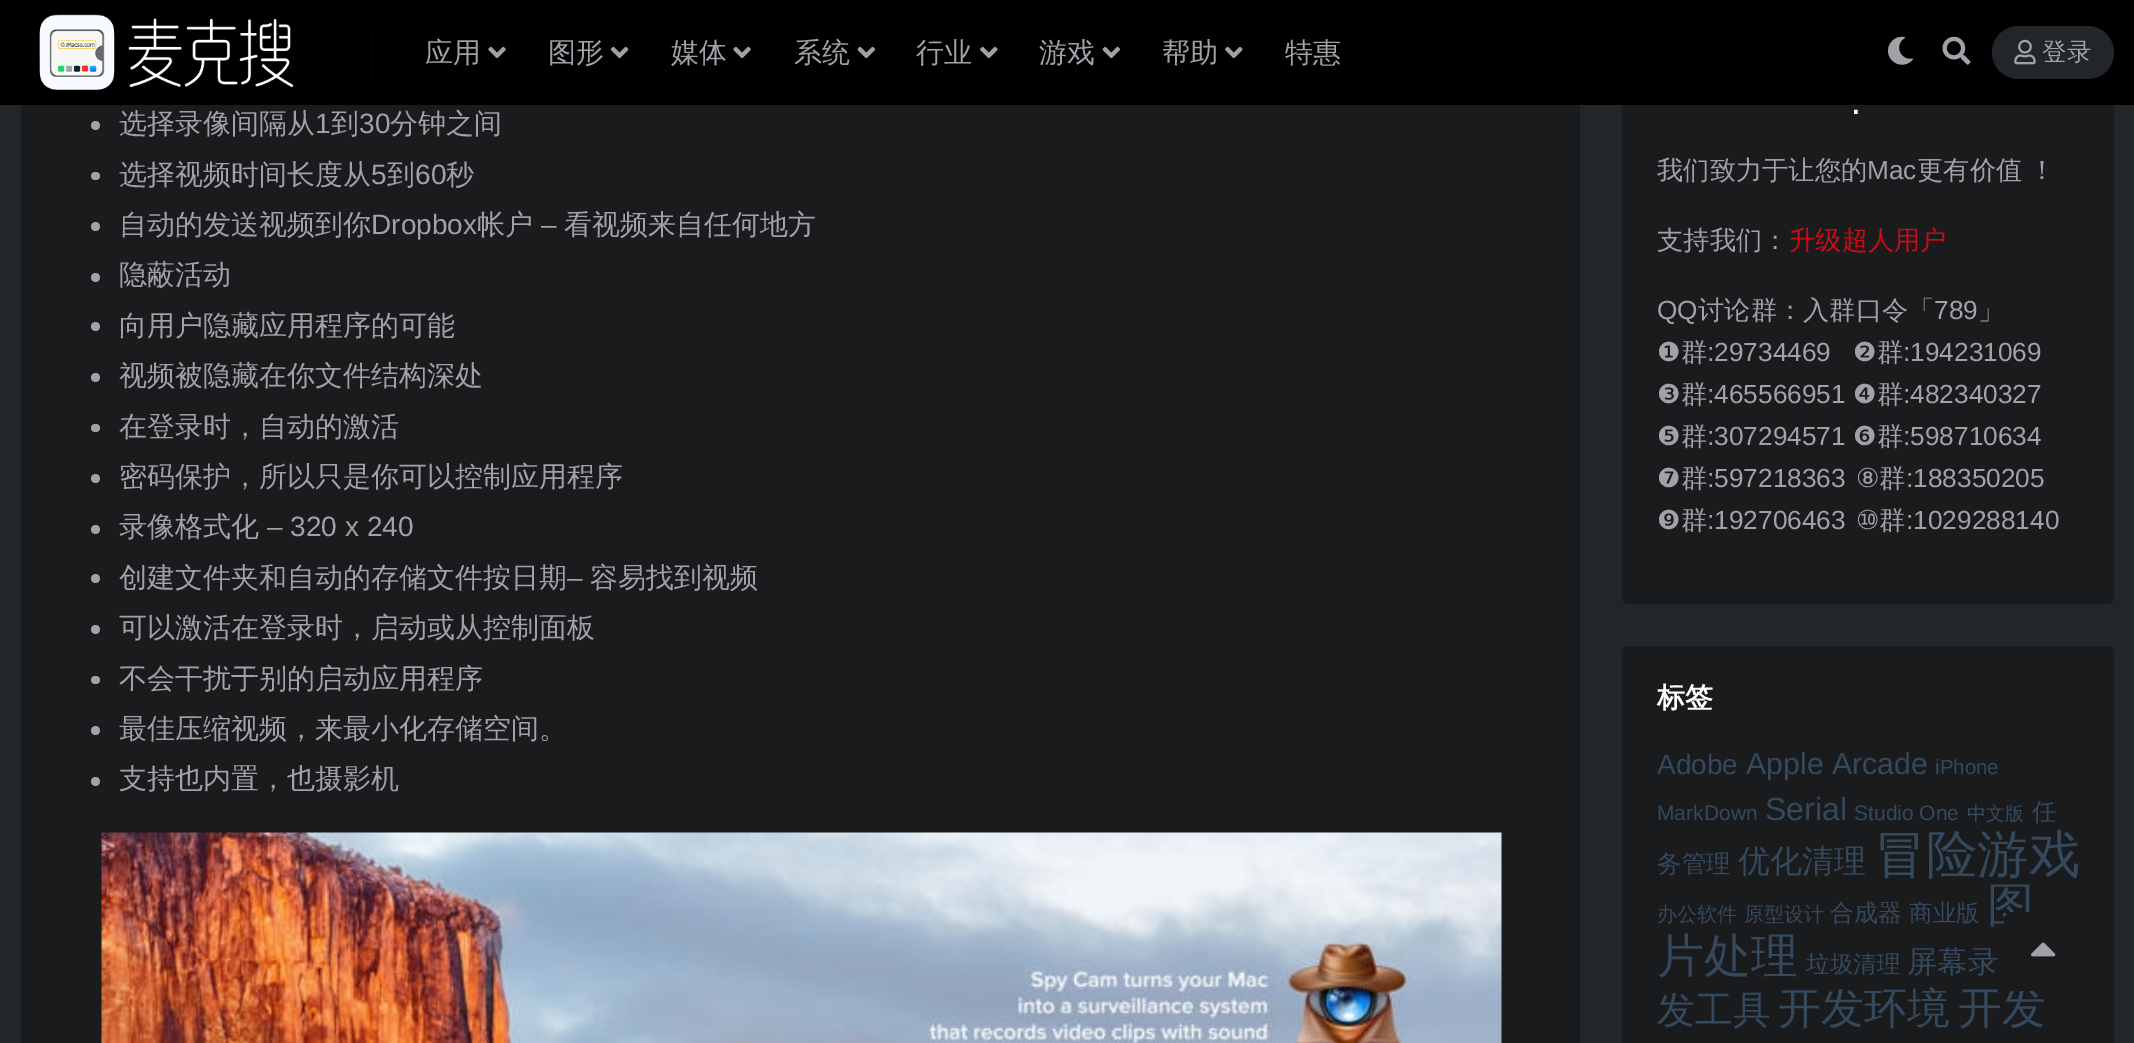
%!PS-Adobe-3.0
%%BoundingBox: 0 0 2134 1043
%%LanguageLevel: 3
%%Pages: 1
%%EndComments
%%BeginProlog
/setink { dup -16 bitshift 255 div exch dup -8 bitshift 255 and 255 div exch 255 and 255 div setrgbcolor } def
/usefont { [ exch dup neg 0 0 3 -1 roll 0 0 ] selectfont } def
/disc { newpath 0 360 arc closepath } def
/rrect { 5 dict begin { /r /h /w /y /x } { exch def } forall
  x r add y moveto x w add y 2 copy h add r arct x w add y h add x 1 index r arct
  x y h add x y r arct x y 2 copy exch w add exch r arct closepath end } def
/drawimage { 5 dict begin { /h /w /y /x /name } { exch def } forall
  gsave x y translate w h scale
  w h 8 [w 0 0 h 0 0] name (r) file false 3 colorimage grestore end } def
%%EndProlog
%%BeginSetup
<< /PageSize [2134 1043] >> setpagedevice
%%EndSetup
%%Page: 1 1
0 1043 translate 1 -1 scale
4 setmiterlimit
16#222529 setink
0 0 2134 1043 rectfill
16#191B1D setink
1622 53 492 551 7 rrect fill
16#000000 setink
0 0 2134 105 rectfill
(img1.raw) 39 14 255 77 drawimage
16#030303 setink
371 26 2 53 rectfill
/WenQuanYiZenHei-Medium 28 usefont
16#A1A1A8 setink
425 62 moveto (应用) show
(img2.raw) 488 46 18 13 drawimage
548 62 moveto (图形) show
(img3.raw) 610 46 19 13 drawimage
671 62 moveto (媒体) show
(img2.raw) 733 46 18 13 drawimage
794 62 moveto (系统) show
(img4.raw) 857 46 18 13 drawimage
916 62 moveto (行业) show
(img5.raw) 980 46 18 13 drawimage
1039 62 moveto (游戏) show
(img4.raw) 1102 46 18 13 drawimage
1162 62 moveto (帮助) show
(img5.raw) 1225 46 18 13 drawimage
1285 62 moveto (特惠) show
(img6.raw) 1888 36 25 29 drawimage
(img7.raw) 1942 36 29 29 drawimage
16#222529 setink
1992 26 122 53 26.5 rrect fill
(img8.raw) 2014 39 22 26 drawimage
/WenQuanYiZenHei-Medium 24.5 usefont
16#A1A1A8 setink
2042 60 moveto (登录) show
16#191B1D setink
21 105 1559 938 rectfill
16#A1A1A8 setink
95.5 125.5 4.5 disc fill
/WenQuanYiZenHei-Medium 28 usefont
119 133 moveto (选择录像间隔从) show
/LiberationSans-Regular 28 usefont
315 133 moveto (1) show
/WenQuanYiZenHei-Medium 28 usefont
331 133 moveto (到) show
/LiberationSans-Regular 28 usefont
359 133 moveto (30) show
/WenQuanYiZenHei-Medium 28 usefont
390 133 moveto (分钟之间) show
91 172 9 8 4 rrect fill
119 184 moveto (选择视频时间长度从) show
/LiberationSans-Regular 28 usefont
371 184 moveto (5) show
/WenQuanYiZenHei-Medium 28 usefont
387 184 moveto (到) show
/LiberationSans-Regular 28 usefont
415 184 moveto (60) show
/WenQuanYiZenHei-Medium 28 usefont
446 184 moveto (秒) show
95.5 226.5 4.5 disc fill
119 234 moveto (自动的发送视频到你) show
/LiberationSans-Regular 28 usefont
371 234 moveto (Dropbox) show
/WenQuanYiZenHei-Medium 28 usefont
477 234 moveto (帐户) show
/LiberationSans-Regular 28 usefont
541 234 moveto (–) show
/WenQuanYiZenHei-Medium 28 usefont
564 234 moveto (看视频来自任何地方) show
95.5 277.5 4.5 disc fill
119 284 moveto (隐蔽活动) show
95.5 326.5 4.5 disc fill
119 335 moveto (向用户隐藏应用程序的可能) show
95.5 377.5 4.5 disc fill
119 385 moveto (视频被隐藏在你文件结构深处) show
91 424 9 8 4 rrect fill
119 436 moveto (在登录时，自动的激活) show
95.5 478.5 4.5 disc fill
119 486 moveto (密码保护，所以只是你可以控制应用程序) show
95.5 529.5 4.5 disc fill
119 536 moveto (录像格式化) show
/LiberationSans-Regular 28 usefont
267 536 moveto (– 320 x 240) show
95.5 578.5 4.5 disc fill
/WenQuanYiZenHei-Medium 28 usefont
119 587 moveto (创建文件夹和自动的存储文件按日期) show
/LiberationSans-Regular 28 usefont
567 587 moveto (–) show
/WenQuanYiZenHei-Medium 28 usefont
590 587 moveto (容易找到视频) show
95.5 629.5 4.5 disc fill
119 637 moveto (可以激活在登录时，启动或从控制面板) show
91 676 9 8 4 rrect fill
119 688 moveto (不会干扰于别的启动应用程序) show
95.5 730.5 4.5 disc fill
119 738 moveto (最佳压缩视频，来最小化存储空间。) show
95.5 781.5 4.5 disc fill
119 788 moveto (支持也内置，也摄影机) show
(img9.raw) 101 832 1401 211 drawimage
/LiberationSans-Bold 28 usefont
16#FFFFFF setink
1852 114 moveto (.) show
/WenQuanYiZenHei-Medium 26.25 usefont
16#A1A1A8 setink
1657 179 moveto (我们致力于让您的) show
/LiberationSans-Regular 26.25 usefont
1867 179 moveto (Mac) show
/WenQuanYiZenHei-Medium 26.25 usefont
1917 179 moveto -1 0 32 (更有价值 ！) widthshow
1657 249 moveto (支持我们：) show
16#CA0C16 setink
1789 249 moveto (升级超人用户) show
/LiberationSans-Regular 26.25 usefont
16#A1A1A8 setink
1657 319 moveto (QQ) show
/WenQuanYiZenHei-Medium 26.25 usefont
1698 319 moveto (讨论群：入群口令「) show
/LiberationSans-Regular 26.25 usefont
1934 319 moveto (789) show
/WenQuanYiZenHei-Medium 26.25 usefont
1978 319 moveto (」) show
/DejaVuSans-Regular 26.25 usefont
1657 361 moveto (❶) show
/WenQuanYiZenHei-Medium 26.25 usefont
1681 361 moveto (群) show
/LiberationSans-Regular 26.25 usefont
1707 361 moveto (:29734469) show
/DejaVuSans-Regular 26.25 usefont
1853 361 moveto (❷) show
/WenQuanYiZenHei-Medium 26.25 usefont
1877 361 moveto (群) show
/LiberationSans-Regular 26.25 usefont
1903 361 moveto (:194231069) show
/DejaVuSans-Regular 26.25 usefont
1657 403 moveto (❸) show
/WenQuanYiZenHei-Medium 26.25 usefont
1681 403 moveto (群) show
/LiberationSans-Regular 26.25 usefont
1707 403 moveto (:465566951) show
/DejaVuSans-Regular 26.25 usefont
1853 403 moveto (❹) show
/WenQuanYiZenHei-Medium 26.25 usefont
1877 403 moveto (群) show
/LiberationSans-Regular 26.25 usefont
1903 403 moveto (:482340327) show
/DejaVuSans-Regular 26.25 usefont
1657 445 moveto (❺) show
/WenQuanYiZenHei-Medium 26.25 usefont
1681 445 moveto (群) show
/LiberationSans-Regular 26.25 usefont
1707 445 moveto (:307294571) show
/DejaVuSans-Regular 26.25 usefont
1853 445 moveto (❻) show
/WenQuanYiZenHei-Medium 26.25 usefont
1877 445 moveto (群) show
/LiberationSans-Regular 26.25 usefont
1903 445 moveto (:598710634) show
/DejaVuSans-Regular 26.25 usefont
1657 487 moveto (❼) show
/WenQuanYiZenHei-Medium 26.25 usefont
1681 487 moveto (群) show
/LiberationSans-Regular 26.25 usefont
1707 487 moveto (:597218363) show
/DejaVuSans-Regular 26.25 usefont
1856 487 moveto (⑧) show
/WenQuanYiZenHei-Medium 26.25 usefont
1879 487 moveto (群) show
/LiberationSans-Regular 26.25 usefont
1906 487 moveto (:188350205) show
/DejaVuSans-Regular 26.25 usefont
1657 529 moveto (❾) show
/WenQuanYiZenHei-Medium 26.25 usefont
1681 529 moveto (群) show
/LiberationSans-Regular 26.25 usefont
1707 529 moveto (:192706463) show
/DejaVuSans-Regular 26.25 usefont
1856 529 moveto (⑩) show
/WenQuanYiZenHei-Medium 26.25 usefont
1879 529 moveto (群) show
/LiberationSans-Regular 26.25 usefont
1906 529 moveto (:1029288140) show
16#191B1D setink
1622 646 492 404 7 rrect fill
/WenQuanYiZenHei-Bold 28 usefont
16#FFFFFF setink
1657 707 moveto (标签) show
/LiberationSans-Regular 28 usefont
16#34495E setink
1657 774 moveto (Adobe) show
/LiberationSans-Regular 30.25 usefont
1746 774 moveto (Apple Arcade) show
/LiberationSans-Regular 20.5 usefont
1935 774 moveto (iPhone) show
/LiberationSans-Regular 21 usefont
1657 820 moveto (MarkDown) show
/LiberationSans-Regular 32 usefont
1765 820 moveto (Serial) show
/LiberationSans-Regular 21 usefont
1854 820 moveto (Studio One) show
/WenQuanYiZenHei-Medium 19 usefont
1967 820 moveto (中文版) show
/WenQuanYiZenHei-Medium 24.5 usefont
2032 820 moveto (任) show
1657 872 moveto (务管理) show
/WenQuanYiZenHei-Medium 32 usefont
1738 872 moveto (优化清理) show
/WenQuanYiZenHei-Medium 51.5 usefont
1874 872 moveto (冒险游戏) show
/WenQuanYiZenHei-Medium 20 usefont
1657 921 moveto (办公软件) show
1744 921 moveto (原型设计) show
/WenQuanYiZenHei-Medium 24 usefont
1830 921 moveto (合成器) show
/WenQuanYiZenHei-Medium 23.5 usefont
1909 921 moveto (商业版) show
/WenQuanYiZenHei-Medium 47 usefont
1987 921 moveto (图) show
1657 972 moveto (片处理) show
/WenQuanYiZenHei-Medium 23.5 usefont
1806 972 moveto (垃圾清理) show
/WenQuanYiZenHei-Medium 30.25 usefont
1907 972 moveto (屏幕录) show
/WenQuanYiZenHei-Medium 38 usefont
1657 1023 moveto (发工具) show
/WenQuanYiZenHei-Medium 43 usefont
1778 1023 moveto (开发环境) show
/WenQuanYiZenHei-Medium 44 usefont
1958 1023 moveto (开发) show
16#191B1D setink
2004 912 79 79 9 rrect fill
(img10.raw) 2031 942 25 15 drawimage
showpage
%%EOF
